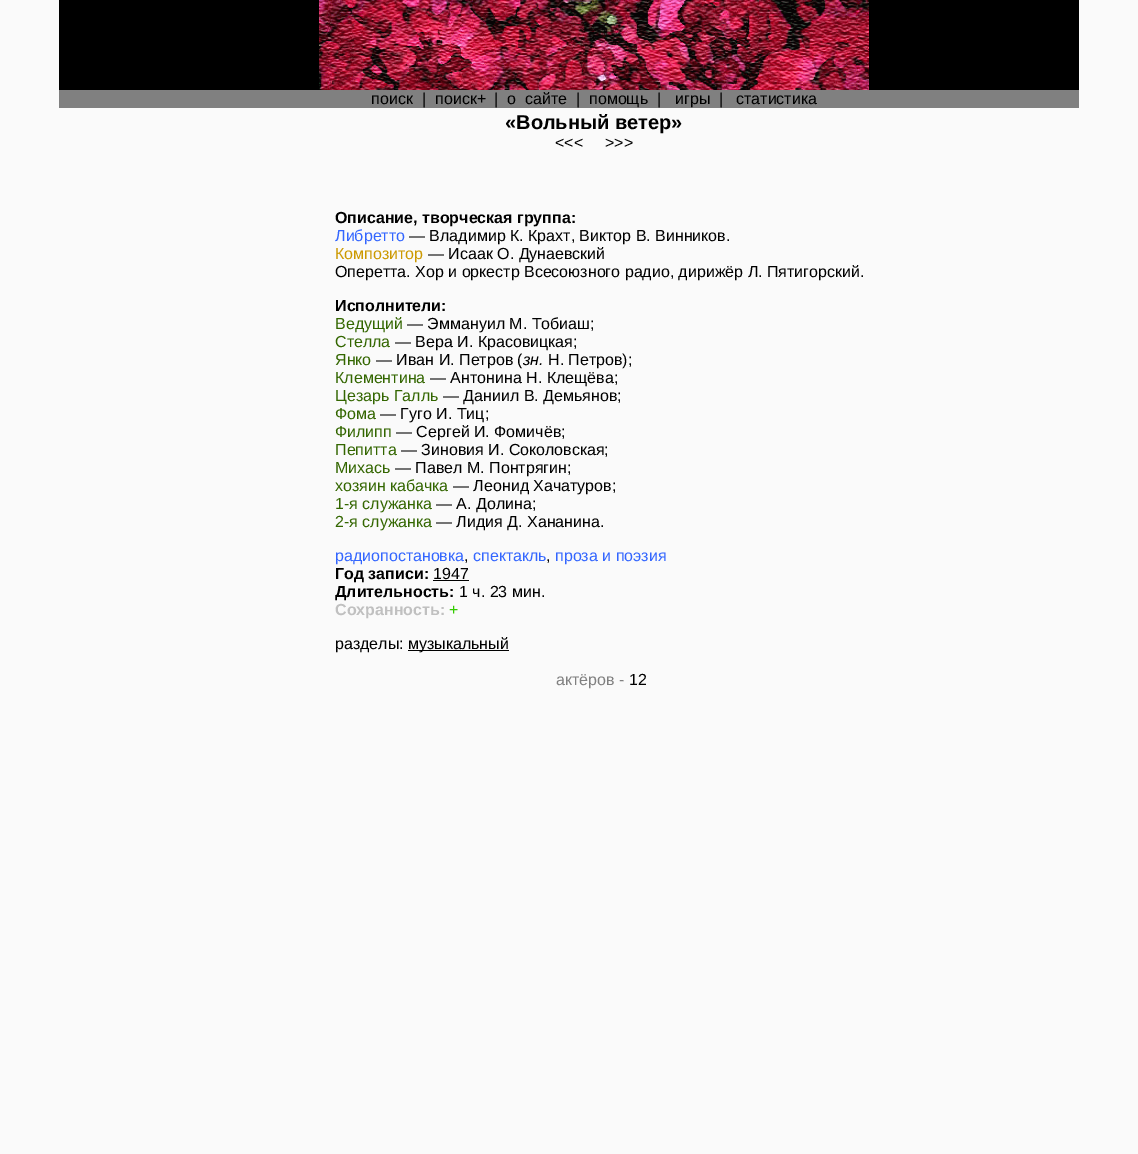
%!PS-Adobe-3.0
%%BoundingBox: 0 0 1138 1154
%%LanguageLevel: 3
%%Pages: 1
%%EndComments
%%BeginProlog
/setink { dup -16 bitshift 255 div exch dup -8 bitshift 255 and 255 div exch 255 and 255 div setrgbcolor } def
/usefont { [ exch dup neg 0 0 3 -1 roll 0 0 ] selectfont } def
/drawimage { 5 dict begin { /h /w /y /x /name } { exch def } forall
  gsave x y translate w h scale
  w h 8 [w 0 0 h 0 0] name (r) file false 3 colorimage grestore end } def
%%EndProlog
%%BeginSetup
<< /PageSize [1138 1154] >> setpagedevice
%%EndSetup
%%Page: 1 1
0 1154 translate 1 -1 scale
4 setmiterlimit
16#FAFAFA setink
0 0 1138 1154 rectfill
16#000000 setink
59 0 260 90 rectfill
(img1.raw) 319 0 550 90 drawimage
869 0 210 90 rectfill
16#808080 setink
59 90 1020 18 rectfill
/LiberationSans-Regular 16 usefont
16#000000 setink
[
    [(поиск) 371 104]
    [(|) 422 104]
    [(поиск+) 435 104]
    [(|) 494 104]
    [(о  сайте) 507 104]
    [(|) 576 104]
    [(помощь) 589 104]
    [(|) 657 104]
    [(игры) 675 104]
    [(|) 719 104]
    [(статистика) 736 104]
] { aload pop moveto show } forall
/LiberationSans-Bold 20 usefont
505 129 moveto («Вольный ветер») show
/LiberationSans-Regular 16 usefont
555 148 moveto (<<<) show
605 148 moveto (>>>) show
/LiberationSans-Bold 16 usefont
335 223 moveto (Описание, творческая группа:) show
/LiberationSans-Regular 16 usefont
16#3366FF setink
335 241 moveto (Либретто) show
16#000000 setink
409 241 moveto (— Владимир К. Крахт, Виктор В. Винников.) show
16#CC9900 setink
335 259 moveto (Композитор) show
16#000000 setink
428 259 moveto (— Исаак О. Дунаевский) show
335 277 moveto (Оперетта. Хор и оркестр Всесоюзного радио, дирижёр Л. Пятигорский.) show
/LiberationSans-Bold 16 usefont
335 311 moveto (Исполнители:) show
/LiberationSans-Regular 16 usefont
16#336600 setink
335 329 moveto (Ведущий) show
16#000000 setink
407 329 moveto (— Эммануил М. Тобиаш;) show
16#336600 setink
335 347 moveto (Стелла) show
16#000000 setink
395 347 moveto (— Вера И. Красовицкая;) show
16#336600 setink
335 365 moveto (Янко) show
16#000000 setink
376 365 moveto (— Иван И. Петров \() show
/LiberationSans-Italic 16 usefont
523 365 moveto (зн.) show
/LiberationSans-Regular 16 usefont
548 365 moveto (Н. Петров\);) show
16#336600 setink
335 383 moveto (Клементина) show
16#000000 setink
430 383 moveto (— Антонина Н. Клещёва;) show
16#336600 setink
335 401 moveto (Цезарь Галль) show
16#000000 setink
443 401 moveto (— Даниил В. Демьянов;) show
16#336600 setink
335 419 moveto (Фома) show
16#000000 setink
380 419 moveto (— Гуго И. Тиц;) show
16#336600 setink
335 437 moveto (Филипп) show
16#000000 setink
396 437 moveto (— Сергей И. Фомичёв;) show
16#336600 setink
335 455 moveto (Пепитта) show
16#000000 setink
401 455 moveto (— Зиновия И. Соколовская;) show
16#336600 setink
335 473 moveto (Михась) show
16#000000 setink
395 473 moveto (— Павел М. Понтрягин;) show
16#336600 setink
335 491 moveto (хозяин кабачка) show
16#000000 setink
453 491 moveto (— Леонид Хачатуров;) show
16#336600 setink
335 509 moveto (1-я служанка) show
16#000000 setink
436 509 moveto (— А. Долина;) show
16#336600 setink
335 527 moveto (2-я служанка) show
16#000000 setink
436 527 moveto (— Лидия Д. Хананина.) show
16#3366FF setink
335 561 moveto (радиопостановка) show
16#000000 setink
464 561 moveto (,) show
16#3366FF setink
473 561 moveto (спектакль) show
16#000000 setink
546 561 moveto (,) show
16#3366FF setink
555 561 moveto (проза и поэзия) show
/LiberationSans-Bold 16 usefont
16#000000 setink
335 579 moveto (Год записи:) show
/LiberationSans-Regular 16 usefont
433 579 moveto (1947) show
433 580 36 1 rectfill
/LiberationSans-Bold 16 usefont
335 597 moveto (Длительность:) show
/LiberationSans-Regular 16 usefont
459 597 moveto (1 ч. 23 мин.) show
/LiberationSans-Bold 16 usefont
16#C0C0C0 setink
335 615 moveto (Сохранность:) show
/LiberationSans-Regular 16 usefont
16#33CC00 setink
449 615 moveto (+) show
16#000000 setink
335 649 moveto (разделы:) show
408 650 101 1 rectfill
408 649 moveto (музыкальный) show
16#808080 setink
556 685 moveto (актёров -) show
16#000000 setink
629 685 moveto (12) show
showpage
%%EOF
